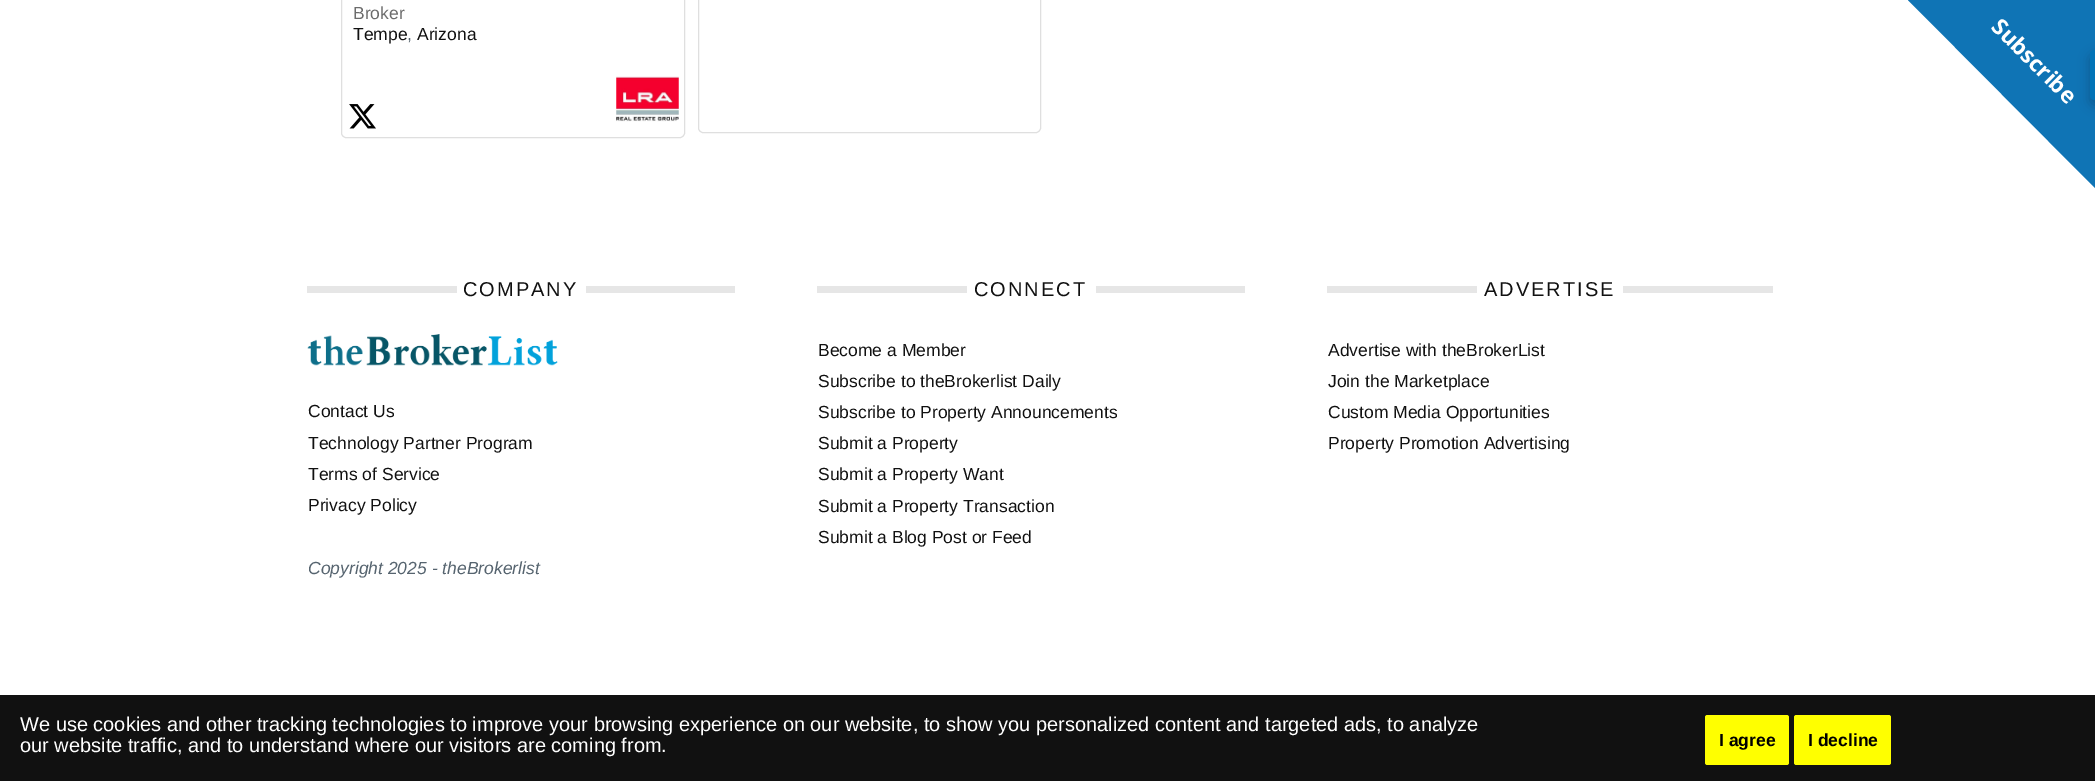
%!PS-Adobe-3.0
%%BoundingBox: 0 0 2095 781
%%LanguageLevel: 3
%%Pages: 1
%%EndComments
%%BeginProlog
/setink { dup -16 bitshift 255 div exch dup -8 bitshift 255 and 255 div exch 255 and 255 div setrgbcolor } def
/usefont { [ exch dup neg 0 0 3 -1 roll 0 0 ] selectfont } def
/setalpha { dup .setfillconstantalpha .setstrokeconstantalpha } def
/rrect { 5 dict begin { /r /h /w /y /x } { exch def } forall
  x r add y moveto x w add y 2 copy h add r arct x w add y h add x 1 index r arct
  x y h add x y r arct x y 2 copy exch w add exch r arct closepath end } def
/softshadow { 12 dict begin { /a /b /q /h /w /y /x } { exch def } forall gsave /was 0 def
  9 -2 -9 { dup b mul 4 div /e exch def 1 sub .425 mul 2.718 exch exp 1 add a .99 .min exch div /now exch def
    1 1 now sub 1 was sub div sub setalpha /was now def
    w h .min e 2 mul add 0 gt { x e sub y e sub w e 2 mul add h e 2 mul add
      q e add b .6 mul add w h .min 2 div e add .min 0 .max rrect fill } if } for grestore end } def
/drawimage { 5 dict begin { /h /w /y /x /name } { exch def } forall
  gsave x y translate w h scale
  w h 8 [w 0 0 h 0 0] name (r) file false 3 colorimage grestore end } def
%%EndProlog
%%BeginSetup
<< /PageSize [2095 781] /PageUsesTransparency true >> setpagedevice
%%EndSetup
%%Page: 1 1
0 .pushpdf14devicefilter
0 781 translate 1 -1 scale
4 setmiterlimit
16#FFFFFF setink
0 0 2095 781 rectfill
16#DFDFDF setink
341.5 -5.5 343 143 4.5 rrect stroke
/LiberationSans-Regular 17.5 usefont
16#6C6C6C setink
353 19 moveto (Broker) show
16#111111 setink
353 40 moveto (Tempe) show
16#56646F setink
407 40 moveto (,) show
16#111111 setink
417 40 moveto (Arizona) show
(img1.raw) 349 104 27 25 drawimage
(img2.raw) 616 76 63 46 drawimage
16#DFDFDF setink
698.5 -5.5 342 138 4.5 rrect stroke
16#E6E6E6 setink
307 286 150 7 rectfill
/LiberationSans-Regular 20 usefont
16#111111 setink
463 296 moveto 2 0 (COMPANY) ashow
16#E6E6E6 setink
586 286 149 7 rectfill
(img3.raw) 307 334 251 32 drawimage
/LiberationSans-Regular 17.5 usefont
16#111111 setink
[
    [(Contact Us) 308 417]
    [(Technology Partner Program) 308 449]
    [(Terms of Service) 308 480]
    [(Privacy Policy) 308 511]
] { aload pop moveto show } forall
/LiberationSans-Italic 17.5 usefont
16#56646F setink
308 574 moveto (Copyright 2025 - theBrokerlist) show
16#E6E6E6 setink
817 286 150 7 rectfill
/LiberationSans-Regular 20 usefont
16#111111 setink
974 296 moveto 2 0 (CONNECT) ashow
16#E6E6E6 setink
1096 286 149 7 rectfill
/LiberationSans-Regular 17.5 usefont
16#111111 setink
[
    [(Become a Member) 818 356]
    [(Subscribe to theBrokerlist Daily) 818 387]
    [(Subscribe to Property Announcements) 818 418]
    [(Submit a Property) 818 449]
    [(Submit a Property Want) 818 480]
    [(Submit a Property Transaction) 818 512]
    [(Submit a Blog Post or Feed) 818 543]
] { aload pop moveto show } forall
16#E6E6E6 setink
1327 286 150 7 rectfill
/LiberationSans-Regular 20 usefont
16#111111 setink
1484 296 moveto 2 0 (ADVERTISE) ashow
16#E6E6E6 setink
1623 286 150 7 rectfill
/LiberationSans-Regular 17.5 usefont
16#111111 setink
[
    [(Advertise with theBrokerList) 1328 356]
    [(Join the Marketplace) 1328 387]
    [(Custom Media Opportunities) 1328 418]
    [(Property Promotion Advertising) 1328 449]
] { aload pop moveto show } forall
16#0F74B5 setink
1908 0 moveto 2095 0 lineto 2095 188 lineto closepath fill
/OpenSans-Bold 22.5 usefont
16#FFFFFF setink
gsave 1990 28 translate 45 rotate 0 0 moveto (Subscribe) show grestore
16#000000 setink
2090 55 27 50 4 6 0.2 softshadow
16#0073B7 setink
2094 50 moveto 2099 50 lineto 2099 100 lineto 2094 100 lineto 2092 100 2090 98 2090 96 curveto 2090 54 lineto 2090 52 2092 50 2094 50 curveto closepath fill
16#111111 setink
0 695 2095 86 rectfill
/LiberationSans-Regular 20 usefont
16#FFFFFF setink
20 731 moveto (We use cookies and other tracking technologies to improve your browsing experience on our website, to show you personalized content and targeted ads, to analyze) show
20 752 moveto (our website traffic, and to understand where our visitors are coming from.) show
16#FFFF00 setink
1705 715 84 50 2.5 rrect fill
/LiberationSans-Bold 17.5 usefont
16#000000 setink
1719 746 moveto (I agree) show
16#FFFF00 setink
1794 715 97 50 2.5 rrect fill
16#000000 setink
1808 746 moveto (I decline) show
.poppdf14devicefilter showpage
%%EOF
